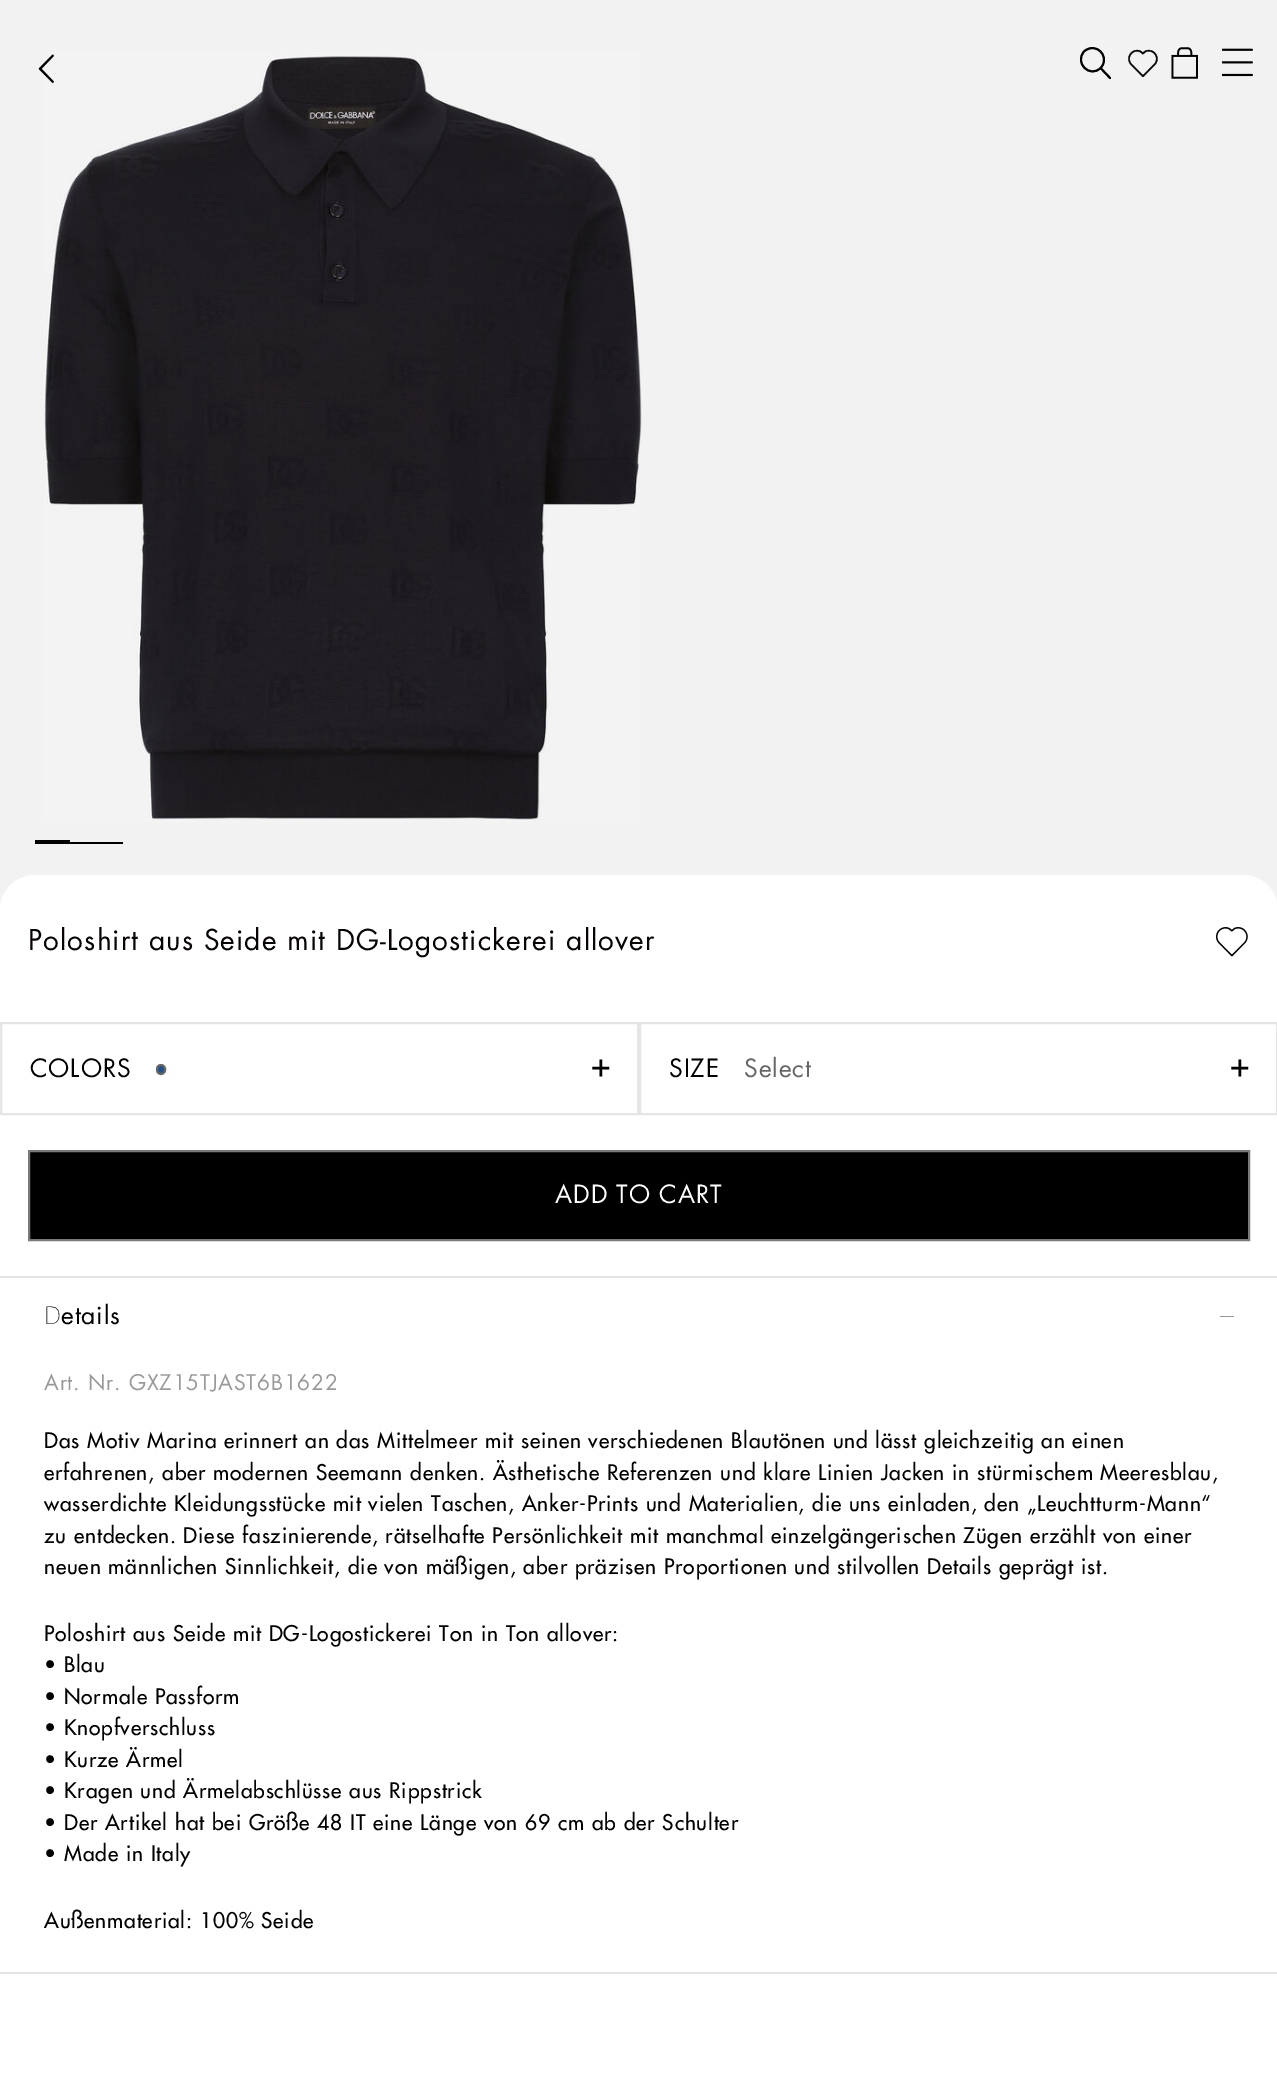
%!PS-Adobe-3.0
%%BoundingBox: 0 0 1277 2074
%%LanguageLevel: 3
%%Pages: 1
%%EndComments
%%BeginProlog
/setink { dup -16 bitshift 255 div exch dup -8 bitshift 255 and 255 div exch 255 and 255 div setrgbcolor } def
/usefont { [ exch dup neg 0 0 3 -1 roll 0 0 ] selectfont } def
/rrect { 5 dict begin { /r /h /w /y /x } { exch def } forall
  x r add y moveto x w add y 2 copy h add r arct x w add y h add x 1 index r arct
  x y h add x y r arct x y 2 copy exch w add exch r arct closepath end } def
/drawimage { 5 dict begin { /h /w /y /x /name } { exch def } forall
  gsave x y translate w h scale
  w h 8 [w 0 0 h 0 0] name (r) file false 3 colorimage grestore end } def
%%EndProlog
%%BeginSetup
<< /PageSize [1277 2074] >> setpagedevice
%%EndSetup
%%Page: 1 1
0 2074 translate 1 -1 scale
4 setmiterlimit
16#FFFFFF setink
0 0 1277 2074 rectfill
16#F2F2F2 setink
0 0 1277 910 rectfill
gsave
1080 47 31 32 rectclip
16#000000 setink
2 setlinewidth
1101 68.5 moveto 1111 79 lineto 1100.5 68 moveto 1109 60 1101 45.5 1089.5 48.5 curveto 1087.5 49 1085.5 50 1084 51.5 curveto 1074 63 1090 78.5 1100.5 68 curveto closepath stroke
grestore
(img1.raw) 1128 49 30 29 drawimage
(img2.raw) 1171 47 27 32 drawimage
(img3.raw) 1222 48 31 29 drawimage
(img4.raw) 44 52 598 771 drawimage
16#000000 setink
70 842 53 2 rectfill
35 840 35 4 rectfill
(img5.raw) 38 54 16 29 drawimage
16#FFFFFF setink
35 875 moveto 1243 875 lineto 1262.5 875 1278 890.5 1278 910 curveto 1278 1241 lineto 0 1241 lineto 0 910 lineto 0 890.5 15.5 875 35 875 curveto closepath fill
/Futura-Regular 28 usefont
16#080404 setink
28 950 moveto 1.1 0 (Poloshirt aus Seide mit DG-Logostickerei allover) ashow
(img6.raw) 1216 927 32 30 drawimage
16#E5E5E5 setink
2 setlinewidth
1 1023 637 91 rectstroke
/Futura-Regular 24.5 usefont
16#000000 setink
30 1077 moveto 0.9 0 (COLORS) ashow
16#204F89 setink
157 1065 8 9 4 rrect gsave fill grestore
16#666666 setink
stroke
/Futura-Regular 35 usefont
16#000000 setink
590 1077 moveto 0.9 0 (+) ashow
16#E5E5E5 setink
640 1023 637 91 rectstroke
/Futura-Regular 24.5 usefont
16#000000 setink
669 1077 moveto 0.9 0 (SIZE) ashow
16#666666 setink
744 1077 moveto 0.9 0 (Select) ashow
/Futura-Regular 35 usefont
16#000000 setink
1229 1077 moveto 0.9 0 (+) ashow
29 1151 moveto 1249 1151 lineto 1249 1240 lineto 29 1240 lineto closepath gsave fill grestore
16#7A7A7A setink
stroke
/Futura-Regular 24.5 usefont
16#FFFFFF setink
555 1203 moveto 0.9 0 (ADD TO CART) ashow
16#E5E5E5 setink
0 1276 1277 2 rectfill
0 1972 1277 2 rectfill
/NotoSans-Thin 24.5 usefont
16#000000 setink
44 1324 moveto 0.84 0 (D) ashow
/Futura-Regular 24.5 usefont
61 1324 moveto 0.84 0 (etails) ashow
16#999999 setink
1220 1316 14 1 rectfill
/Futura-Regular 21 usefont
44 1390 moveto 0.84 0 (Art. Nr. GXZ15TJAST6B1622) ashow
/Futura-Medium 21 usefont
16#000000 setink
44 1448 moveto 0.84 0 (Das Motiv Marina erinnert an das Mittelmeer mit seinen verschiedenen Blautönen und lässt gleichzeitig an einen) ashow
44 1480 moveto 0.84 0 (erfahrenen, aber modernen Seemann denken. Ästhetische Referenzen und klare Linien Jacken in stürmischem Meeresblau,) ashow
44 1511 moveto 0.84 0 (wasserdichte Kleidungsstücke mit vielen Taschen, Anker-Prints und Materialien, die uns einladen, den „Leuchtturm-Mann“) ashow
44 1543 moveto 0.84 0 (zu entdecken. Diese faszinierende, rätselhafte Persönlichkeit mit manchmal einzelgängerischen Zügen erzählt von einer) ashow
44 1574 moveto 0.84 0 (neuen männlichen Sinnlichkeit, die von mäßigen, aber präzisen Proportionen und stilvollen Details geprägt ist.) ashow
44 1641 moveto 0.84 0 (Poloshirt aus Seide mit DG-Logostickerei Ton in Ton allover:) ashow
44 1672 moveto 0.84 0 (• Blau) ashow
44 1704 moveto 0.84 0 (• Normale Passform) ashow
44 1735 moveto 0.84 0 (• Knopfverschluss) ashow
44 1767 moveto 0.84 0 (• Kurze Ärmel) ashow
44 1798 moveto 0.84 0 (• Kragen und Ärmelabschlüsse aus Rippstrick) ashow
44 1830 moveto 0.84 0 (• Der Artikel hat bei Größe 48 IT eine Länge von 69 cm ab der Schulter) ashow
44 1861 moveto 0.84 0 (• Made in Italy) ashow
44 1928 moveto 0.84 0 (Außenmaterial: 100% Seide) ashow
showpage
%%EOF
